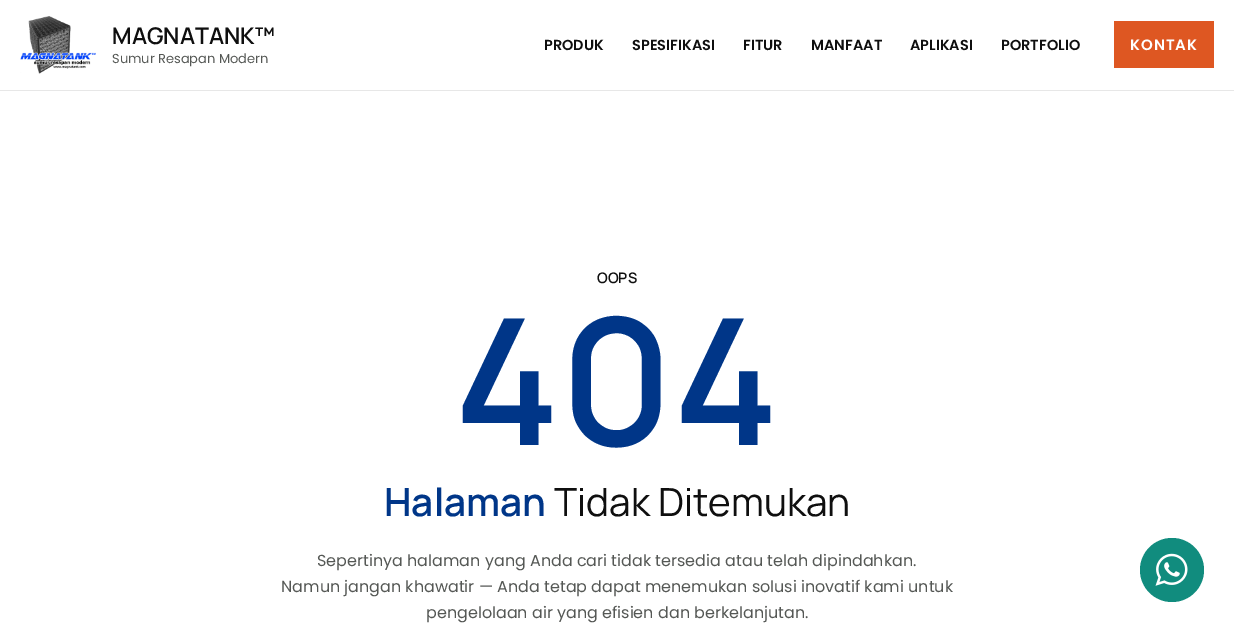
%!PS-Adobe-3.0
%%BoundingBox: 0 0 1234 635
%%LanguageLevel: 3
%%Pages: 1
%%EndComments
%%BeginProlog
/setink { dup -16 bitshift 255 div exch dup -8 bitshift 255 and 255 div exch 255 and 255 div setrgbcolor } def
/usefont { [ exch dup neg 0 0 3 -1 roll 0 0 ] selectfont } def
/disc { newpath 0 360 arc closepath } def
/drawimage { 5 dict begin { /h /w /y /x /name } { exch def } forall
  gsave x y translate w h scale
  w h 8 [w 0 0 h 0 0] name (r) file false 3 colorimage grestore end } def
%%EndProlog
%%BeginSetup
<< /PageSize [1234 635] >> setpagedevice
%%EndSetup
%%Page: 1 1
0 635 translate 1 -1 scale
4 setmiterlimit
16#FFFFFF setink
0 0 1234 635 rectfill
16#E7E7E7 setink
0 90 1234 1 rectfill
(img1.raw) 20 16 76 58 drawimage
/Manrope-SemiBold 23 usefont
16#0F0F0F setink
112 44 moveto (MAGNATANK™) show
/Poppins-Regular 13 usefont
16#555855 setink
112 63 moveto (Sumur Resapan Modern) show
/Poppins-SemiBold 14.5 usefont
16#0F0F0F setink
[
    [(PRODUK) 544 50]
    [(SPESIFIKASI) 632 50]
    [(FITUR) 743 50]
    [(MANFAAT) 811 50]
    [(APLIKASI) 910 50]
    [(PORTFOLIO) 1001 50]
] { aload pop moveto show } forall
16#DE5722 setink
1114 21 100 47 rectfill
/Poppins-SemiBold 15 usefont
16#FFFFFF setink
1130 50 moveto 1 0 (KONTAK) ashow
/Manrope-SemiBold 14.5 usefont
16#0F0F0F setink
597 283 moveto (OOPS) show
/Manrope-SemiBold 176 usefont
16#003688 setink
454 445 moveto (404) show
/Manrope-SemiBold 38.75 usefont
384 516 moveto (Halaman) show
/Manrope-Regular 38.75 usefont
16#0F0F0F setink
554 516 moveto (Tidak Ditemukan) show
/Poppins-Regular 16 usefont
16#555855 setink
[
    [(Sepertinya halaman yang Anda cari tidak tersedia atau telah dipindahkan.) 317 566]
    [(Namun jangan khawatir — Anda tetap dapat menemukan solusi inovatif kami untuk) 281 592]
    [(pengelolaan air yang efisien dan berkelanjutan.) 426 618]
] { aload pop moveto show } forall
16#118C7E setink
1172 570 32 disc fill
(img2.raw) 1155 553 33 33 drawimage
showpage
%%EOF
